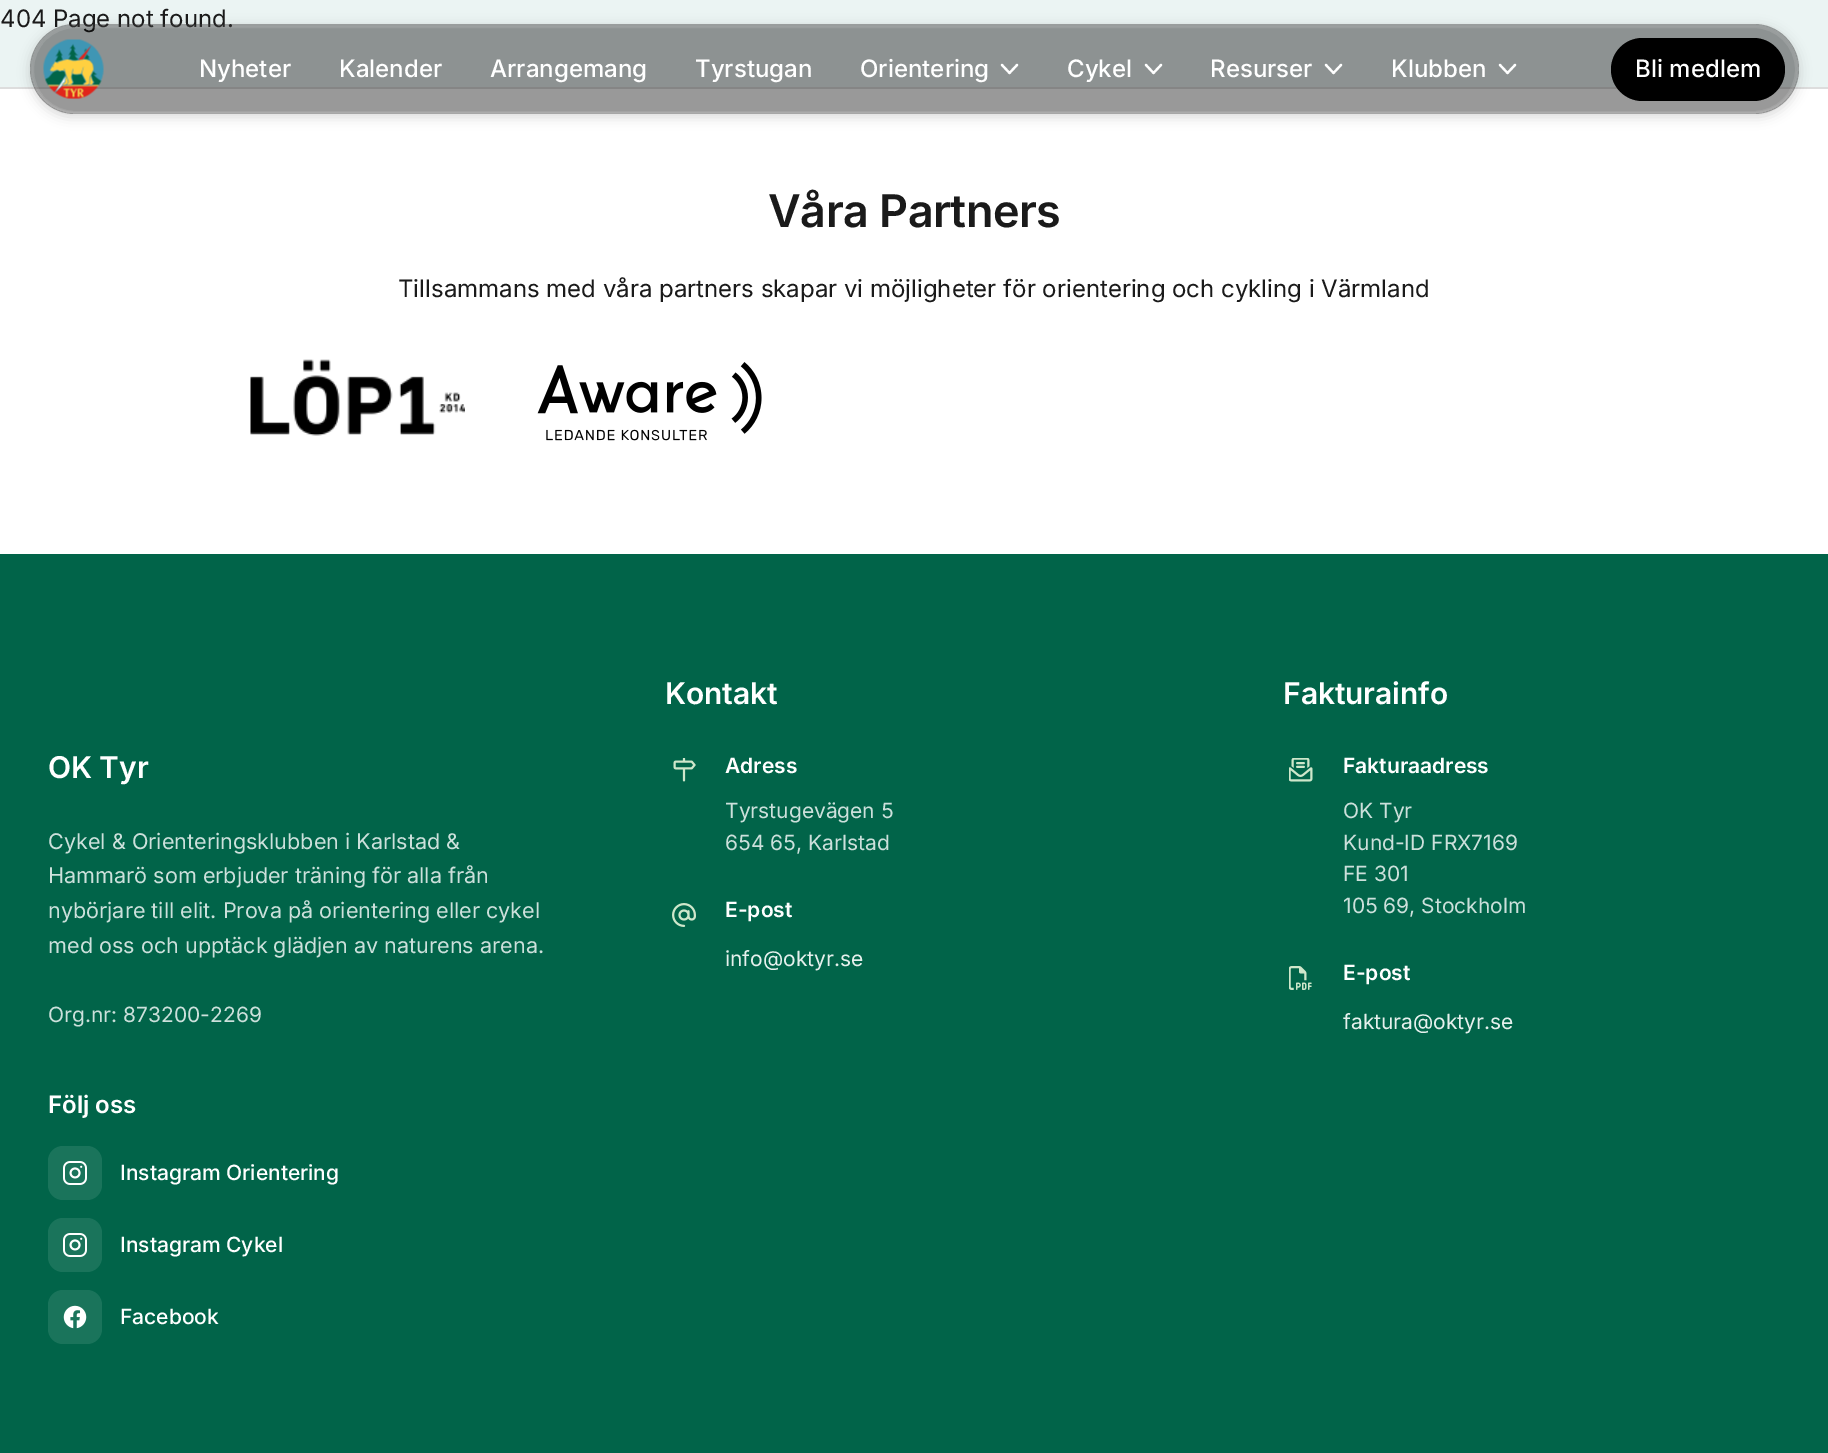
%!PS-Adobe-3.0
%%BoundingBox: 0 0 1828 1453
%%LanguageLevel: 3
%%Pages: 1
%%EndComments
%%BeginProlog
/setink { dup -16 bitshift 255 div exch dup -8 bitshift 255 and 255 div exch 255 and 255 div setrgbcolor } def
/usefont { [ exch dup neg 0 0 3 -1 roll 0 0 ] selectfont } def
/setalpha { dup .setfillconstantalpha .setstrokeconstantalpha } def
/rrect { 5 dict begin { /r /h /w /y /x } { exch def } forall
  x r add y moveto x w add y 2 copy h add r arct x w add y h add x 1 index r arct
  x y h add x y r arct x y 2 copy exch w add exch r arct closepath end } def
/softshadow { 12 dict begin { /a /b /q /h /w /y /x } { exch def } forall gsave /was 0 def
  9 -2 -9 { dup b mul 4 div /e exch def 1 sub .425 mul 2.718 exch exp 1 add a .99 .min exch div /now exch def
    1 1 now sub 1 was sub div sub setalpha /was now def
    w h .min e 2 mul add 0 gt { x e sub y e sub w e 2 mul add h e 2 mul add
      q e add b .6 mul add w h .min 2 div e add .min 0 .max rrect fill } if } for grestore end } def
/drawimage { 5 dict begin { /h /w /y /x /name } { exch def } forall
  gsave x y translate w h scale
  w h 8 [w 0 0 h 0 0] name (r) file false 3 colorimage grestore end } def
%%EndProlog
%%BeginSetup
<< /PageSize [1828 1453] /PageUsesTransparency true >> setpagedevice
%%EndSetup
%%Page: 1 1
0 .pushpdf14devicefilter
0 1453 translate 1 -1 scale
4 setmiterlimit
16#EBF4F3 setink
0 0 1828 1453 rectfill
/Inter-Regular 24 usefont
16#1A1A1A setink
0 27 moveto (404 Page not found.) show
16#FFFFFF setink
0 89 1828 465 rectfill
16#DDDDDD setink
0 87 1828 2 rectfill
gsave
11 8 moveto 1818 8 lineto 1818 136 lineto 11 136 lineto closepath 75 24 moveto 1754 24 lineto 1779 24 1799 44 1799 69 curveto 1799 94 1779 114 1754 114 curveto 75 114 lineto 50 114 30 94 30 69 curveto 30 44 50 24 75 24 curveto closepath eoclip newpath
16#000000 setink
30 27 1769 90 45 6 0.15 softshadow
grestore
0.4 setalpha
16#000000 setink
30 24 1769 90 45 rrect fill
0.1 setalpha
16#FFFFFF setink
2 setlinewidth
33 27 1763 85 42.5 rrect stroke
31 25 1767 88 44 rrect stroke
1 setalpha
(img1.raw) 43 39 61 60 drawimage
/Inter-Medium 24 usefont
[
    [(Nyheter) 199 77]
    [(Kalender) 339 77]
    [(Arrangemang) 490 77]
    [(Tyrstugan) 695 77]
    [(Orientering) 860 77]
] { aload pop moveto show } forall
2.2 setlinewidth
1 setlinecap
1 setlinejoin
1002 65 moveto 1009.5 73 lineto 1017 65 lineto stroke
1067 77 moveto (Cykel) show
1146 65 moveto 1153.5 73 lineto 1161 65 lineto stroke
1210 77 moveto (Resurser) show
1326 65 moveto 1333.5 73 lineto 1341 65 lineto stroke
1391 77 moveto (Klubben) show
1500 65 moveto 1507.5 73 lineto 1515 65 lineto stroke
16#000000 setink
1611 38 174 63 31.5 rrect fill
16#FFFFFF setink
1635 77 moveto (Bli medlem) show
/Inter-SemiBold 45 usefont
16#1A1A1A setink
768 227 moveto -0.5 0 (Våra Partners) ashow
/Inter-Regular 24 usefont
398 297 moveto (Tillsammans med våra partners skapar vi möjligheter för orientering och cykling i Värmland) show
(img2.raw) 250 359 215 77 drawimage
(img3.raw) 537 362 225 79 drawimage
16#016449 setink
0 554 1828 899 rectfill
/Inter-SemiBold 30 usefont
16#FFFFFF setink
48 778 moveto -0.1 0 (OK Tyr) ashow
/Inter-Regular 21.6 usefont
16#CCE0DB setink
[
    [(Cykel & Orienteringsklubben i Karlstad &) 48 849]
    [(Hammarö som erbjuder träning för alla från) 48 883]
    [(nybörjare till elit. Prova på orientering eller cykel) 48 918]
    [(med oss och upptäck glädjen av naturens arena.) 48 953]
] { aload pop moveto show } forall
/Inter-Regular 21 usefont
48 1022 moveto (Org.nr: 873200-2269) show
/Inter-SemiBold 24 usefont
16#FFFFFF setink
48 1113 moveto (Följ oss) show
16#1A745B setink
48 1146 54 54 15 rrect fill
(img4.raw) 63 1161 24 24 drawimage
/Inter-Medium 21 usefont
16#FFFFFF setink
120 1180 moveto (Instagram Orientering) show
16#1A745B setink
48 1218 54 54 15 rrect fill
(img4.raw) 63 1233 24 24 drawimage
16#FFFFFF setink
120 1252 moveto (Instagram Cykel) show
16#1A745B setink
48 1290 54 54 15 rrect fill
(img5.raw) 63 1305 24 24 drawimage
16#FFFFFF setink
120 1324 moveto (Facebook) show
/Inter-SemiBold 30 usefont
665 704 moveto -0.1 0 (Kontakt) ashow
(img6.raw) 673 758 23 24 drawimage
/Inter-SemiBold 21 usefont
725 773 moveto (Adress) show
/Inter-Regular 21 usefont
16#CCE0DB setink
725 818 moveto (Tyrstugevägen 5) show
725 850 moveto (654 65, Karlstad) show
(img7.raw) 672 903 24 24 drawimage
/Inter-SemiBold 21 usefont
16#FFFFFF setink
725 917 moveto (E-post) show
/Inter-Regular 21 usefont
16#E6F0ED setink
725 966 moveto (info@oktyr.se) show
/Inter-SemiBold 30 usefont
16#FFFFFF setink
1283 704 moveto -0.1 0 (Fakturainfo) ashow
(img8.raw) 1289 758 24 24 drawimage
/Inter-SemiBold 21 usefont
1343 773 moveto (Fakturaadress) show
/Inter-Regular 21 usefont
16#CCE0DB setink
[
    [(OK Tyr) 1343 818]
    [(Kund-ID FRX7169) 1343 850]
    [(FE 301) 1343 881]
    [(105 69, Stockholm) 1343 913]
] { aload pop moveto show } forall
(img9.raw) 1289 966 23 24 drawimage
/Inter-SemiBold 21 usefont
16#FFFFFF setink
1343 980 moveto (E-post) show
/Inter-Regular 21 usefont
16#E6F0ED setink
1343 1029 moveto (faktura@oktyr.se) show
.poppdf14devicefilter showpage
%%EOF
